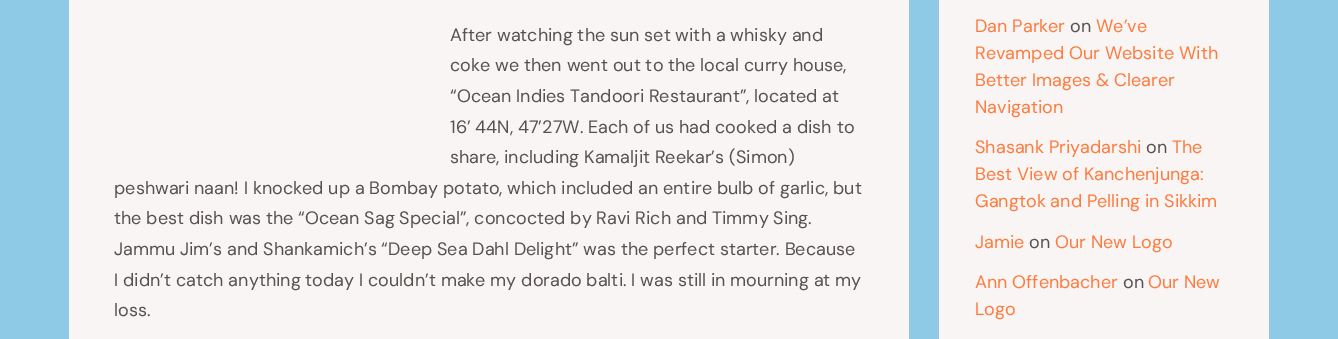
%!PS-Adobe-3.0
%%BoundingBox: 0 0 1338 339
%%LanguageLevel: 3
%%Pages: 1
%%EndComments
%%BeginProlog
/setink { dup -16 bitshift 255 div exch dup -8 bitshift 255 and 255 div exch 255 and 255 div setrgbcolor } def
/usefont { [ exch dup neg 0 0 3 -1 roll 0 0 ] selectfont } def
%%EndProlog
%%BeginSetup
<< /PageSize [1338 339] >> setpagedevice
%%EndSetup
%%Page: 1 1
0 339 translate 1 -1 scale
4 setmiterlimit
16#8ECAE6 setink
0 0 1338 339 rectfill
16#F8F5F4 setink
69 0 840 339 rectfill
/DMSans-Regular 18 usefont
16#575250 setink
[
    [(After watching the sun set with a whisky and) 450 41]
    [(coke we then went out to the local curry house,) 450 71]
    [(“Ocean Indies Tandoori Restaurant”, located at) 450 102]
    [(16’ 44N, 47’27W. Each of us had cooked a dish to) 450 133]
    [(share, including Kamaljit Reekar’s \(Simon\)) 450 163]
    [(peshwari naan! I knocked up a Bombay potato, which included an entire bulb of garlic, but) 114 194]
    [(the best dish was the “Ocean Sag Special”, concocted by Ravi Rich and Timmy Sing.) 114 224]
    [(Jammu Jim’s and Shankamich’s “Deep Sea Dahl Delight” was the perfect starter. Because) 114 255]
    [(I didn’t catch anything today I couldn’t make my dorado balti. I was still in mourning at my) 114 286]
    [(loss.) 114 316]
] { aload pop moveto show } forall
16#F8F5F4 setink
939 0 330 339 rectfill
16#FF7A3D setink
975 32 moveto (Dan Parker) show
16#575250 setink
1070 32 moveto (on) show
16#FF7A3D setink
[
    [(We’ve) 1096 32]
    [(Revamped Our Website With) 975 59]
    [(Better Images & Clearer) 975 86]
    [(Navigation) 975 113]
    [(Shasank Priyadarshi) 975 153]
] { aload pop moveto show } forall
16#575250 setink
1146 153 moveto (on) show
16#FF7A3D setink
[
    [(The) 1172 153]
    [(Best View of Kanchenjunga:) 975 180]
    [(Gangtok and Pelling in Sikkim) 975 207]
    [(Jamie) 975 248]
] { aload pop moveto show } forall
16#575250 setink
1029 248 moveto (on) show
16#FF7A3D setink
1055 248 moveto (Our New Logo) show
975 288 moveto (Ann Offenbacher) show
16#575250 setink
1123 288 moveto (on) show
16#FF7A3D setink
1148 288 moveto (Our New) show
975 315 moveto (Logo) show
showpage
%%EOF
